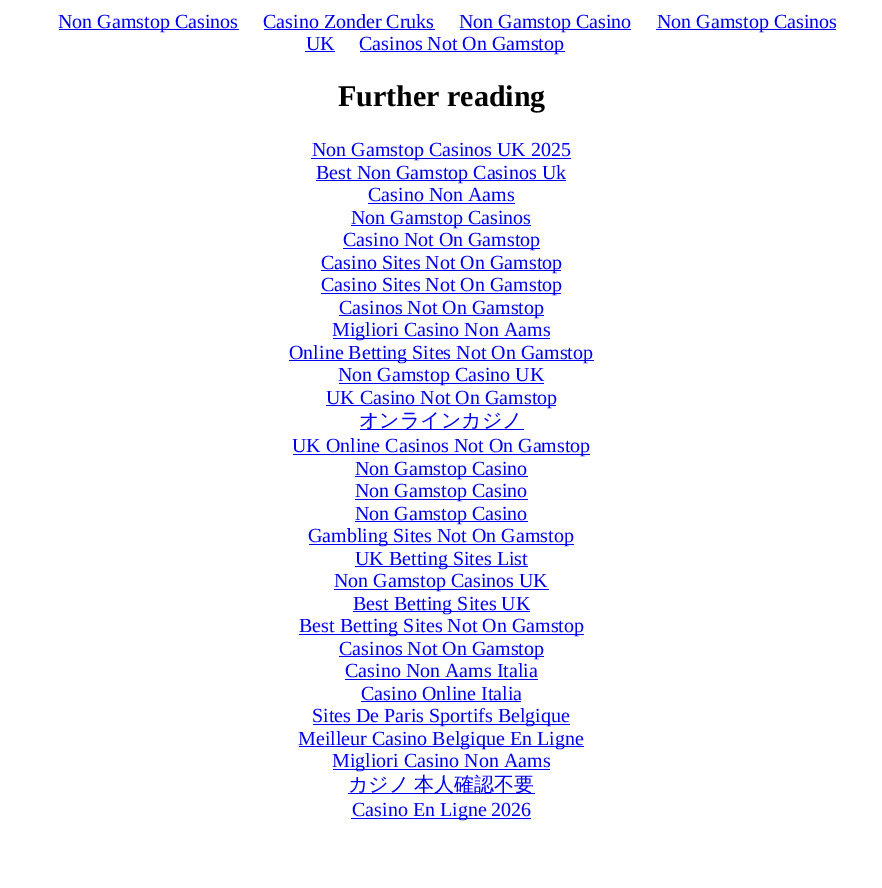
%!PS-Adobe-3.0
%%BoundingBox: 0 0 882 888
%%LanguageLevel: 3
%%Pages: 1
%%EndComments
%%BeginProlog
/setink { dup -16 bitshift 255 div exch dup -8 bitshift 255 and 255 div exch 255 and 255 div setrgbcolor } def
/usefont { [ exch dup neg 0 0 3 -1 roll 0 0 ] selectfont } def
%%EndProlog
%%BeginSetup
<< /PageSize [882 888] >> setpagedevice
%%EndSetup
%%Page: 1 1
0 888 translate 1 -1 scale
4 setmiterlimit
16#FFFFFF setink
0 0 882 888 rectfill
16#0000EE setink
59 29 180 1 rectfill
/LiberationSerif-Regular 20 usefont
58 28 moveto (Non Gamstop Casinos) show
263 28 moveto (Casino Zonder Cruks) show
264 29 171 1 rectfill
460 29 171 1 rectfill
459 28 moveto (Non Gamstop Casino) show
656 29 180 1 rectfill
657 28 moveto (Non Gamstop Casinos) show
306 50 moveto (UK) show
305 51 30 1 rectfill
360 51 205 1 rectfill
359 50 moveto (Casinos Not On Gamstop) show
/LiberationSerif-Bold 30 usefont
16#000000 setink
338 106 moveto (Further reading) show
16#0000EE setink
311 158 260 1 rectfill
/LiberationSerif-Regular 20 usefont
312 156 moveto (Non Gamstop Casinos UK 2025) show
316 180 250 1 rectfill
316 179 moveto (Best Non Gamstop Casinos Uk) show
368 201 moveto (Casino Non Aams) show
368 203 147 1 rectfill
351 225 180 1 rectfill
351 224 moveto (Non Gamstop Casinos) show
343 248 197 1 rectfill
343 246 moveto (Casino Not On Gamstop) show
321 270 240 1 rectfill
321 269 moveto (Casino Sites Not On Gamstop) show
321 293 240 1 rectfill
321 291 moveto (Casino Sites Not On Gamstop) show
339 315 205 1 rectfill
339 314 moveto (Casinos Not On Gamstop) show
333 338 217 1 rectfill
332 336 moveto (Migliori Casino Non Aams) show
289 360 305 1 rectfill
289 359 moveto (Online Betting Sites Not On Gamstop) show
339 383 205 1 rectfill
338 381 moveto (Non Gamstop Casino UK) show
326 405 230 1 rectfill
326 404 moveto (UK Casino Not On Gamstop) show
360 429 164 1 rectfill
/WenQuanYiZenHei-Medium 20 usefont
359 427 moveto (オンラインカジノ) show
293 454 297 1 rectfill
/LiberationSerif-Regular 20 usefont
292 452 moveto (UK Online Casinos Not On Gamstop) show
355 476 173 1 rectfill
355 475 moveto (Non Gamstop Casino) show
355 499 173 1 rectfill
355 497 moveto (Non Gamstop Casino) show
355 521 173 1 rectfill
355 520 moveto (Non Gamstop Casino) show
309 544 265 1 rectfill
308 542 moveto (Gambling Sites Not On Gamstop) show
355 566 173 1 rectfill
355 565 moveto (UK Betting Sites List) show
334 589 215 1 rectfill
334 587 moveto (Non Gamstop Casinos UK) show
353 611 177 1 rectfill
353 610 moveto (Best Betting Sites UK) show
299 634 285 1 rectfill
299 632 moveto (Best Betting Sites Not On Gamstop) show
339 656 205 1 rectfill
339 655 moveto (Casinos Not On Gamstop) show
345 677 moveto (Casino Non Aams Italia) show
345 679 193 1 rectfill
361 700 moveto (Casino Online Italia) show
361 701 160 1 rectfill
313 724 257 1 rectfill
312 722 moveto (Sites De Paris Sportifs Belgique) show
299 746 285 1 rectfill
298 745 moveto (Meilleur Casino Belgique En Ligne) show
333 769 217 1 rectfill
332 767 moveto (Migliori Casino Non Aams) show
348 793 187 1 rectfill
/WenQuanYiZenHei-Medium 20 usefont
348 791 moveto -1 0 32 (カジノ 本人確認不要) widthshow
351 818 180 1 rectfill
/LiberationSerif-Regular 20 usefont
352 816 moveto (Casino En Ligne 2026) show
showpage
%%EOF
